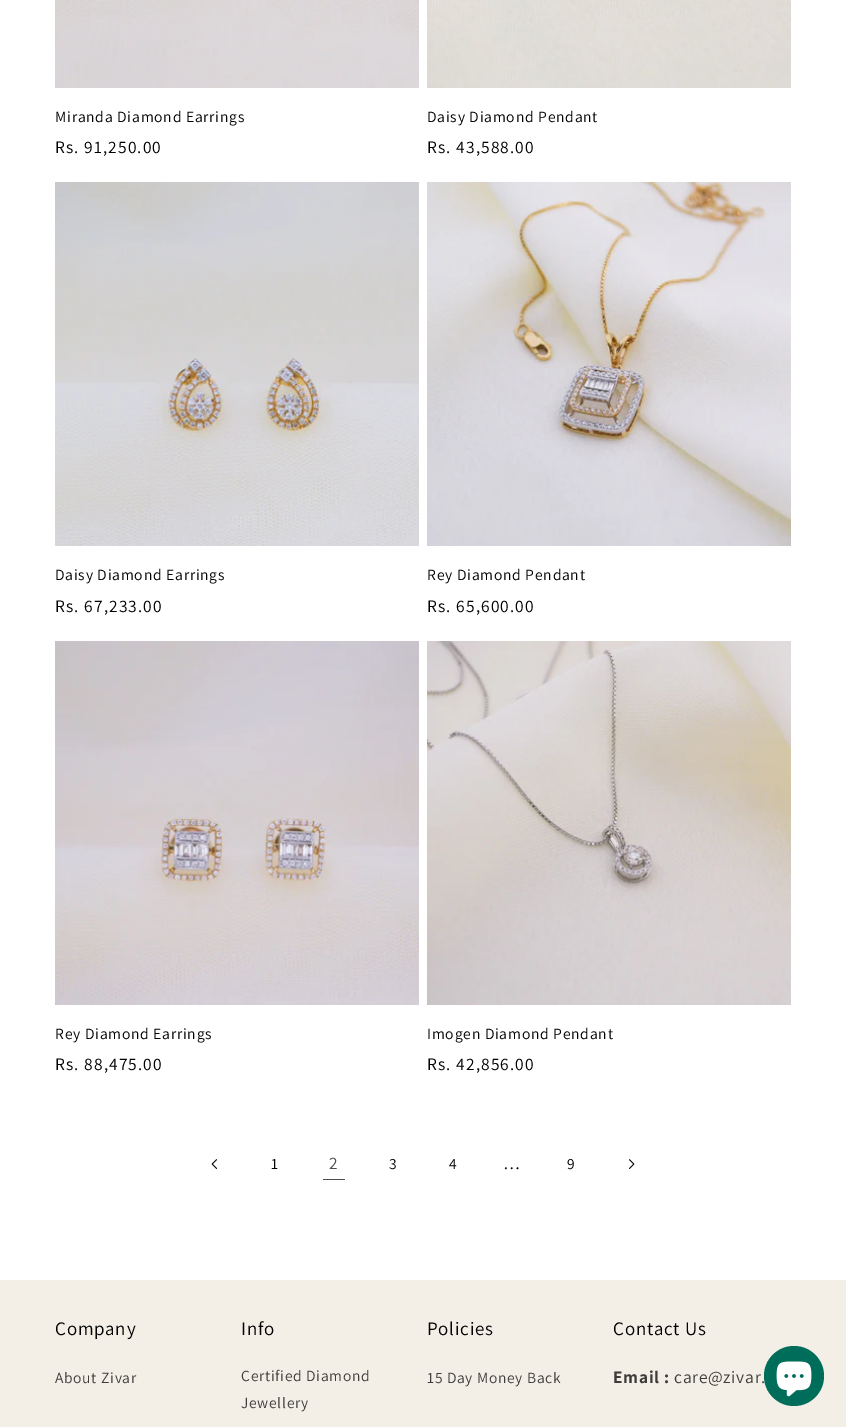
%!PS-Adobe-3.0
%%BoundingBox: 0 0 846 1427
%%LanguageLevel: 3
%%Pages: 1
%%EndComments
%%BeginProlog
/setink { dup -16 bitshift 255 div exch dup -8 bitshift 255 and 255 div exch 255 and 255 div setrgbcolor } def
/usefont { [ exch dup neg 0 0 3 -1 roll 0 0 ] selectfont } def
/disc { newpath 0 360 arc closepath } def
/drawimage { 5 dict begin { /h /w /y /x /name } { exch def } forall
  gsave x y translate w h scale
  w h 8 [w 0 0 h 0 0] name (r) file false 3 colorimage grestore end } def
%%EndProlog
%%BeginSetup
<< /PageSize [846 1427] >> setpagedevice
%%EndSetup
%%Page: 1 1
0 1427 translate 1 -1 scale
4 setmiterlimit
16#FFFFFF setink
0 0 846 1427 rectfill
(img1.raw) 55 0 364 88 drawimage
/Assistant-Regular 15.6 usefont
16#000000 setink
55 122 moveto 0.75 0 (Miranda Diamond Earrings) ashow
/Assistant-Regular 17.5 usefont
55 153 moveto 1.1 0 (Rs. 91,250.00) ashow
(img2.raw) 427 0 364 88 drawimage
/Assistant-Regular 15.6 usefont
427 122 moveto 0.75 0 (Daisy Diamond Pendant) ashow
/Assistant-Regular 17.5 usefont
427 153 moveto 1.1 0 (Rs. 43,588.00) ashow
(img3.raw) 55 182 364 364 drawimage
/Assistant-Regular 15.6 usefont
55 580 moveto 0.75 0 (Daisy Diamond Earrings) ashow
/Assistant-Regular 17.5 usefont
55 612 moveto 1.1 0 (Rs. 67,233.00) ashow
(img4.raw) 427 182 364 364 drawimage
/Assistant-Regular 15.6 usefont
427 580 moveto 0.75 0 (Rey Diamond Pendant) ashow
/Assistant-Regular 17.5 usefont
427 612 moveto 1.1 0 (Rs. 65,600.00) ashow
(img5.raw) 55 641 364 364 drawimage
/Assistant-Regular 15.6 usefont
55 1039 moveto 0.75 0 (Rey Diamond Earrings) ashow
/Assistant-Regular 17.5 usefont
55 1070 moveto 1.1 0 (Rs. 88,475.00) ashow
(img6.raw) 427 641 364 364 drawimage
/Assistant-Regular 15.6 usefont
427 1039 moveto 0.75 0 (Imogen Diamond Pendant) ashow
/Assistant-Regular 17.5 usefont
427 1070 moveto 1.1 0 (Rs. 42,856.00) ashow
(img7.raw) 211 1159 6 10 drawimage
/Assistant-Regular 15.5 usefont
271 1169 moveto 0.7 0 (1) ashow
/Assistant-Regular 17.5 usefont
16#4D4D4D setink
329 1169 moveto 0.7 0 (2) ashow
323 1179 22 1 rectfill
/Assistant-Regular 15.5 usefont
16#000000 setink
389 1169 moveto 0.7 0 (3) ashow
449 1169 moveto 0.7 0 (4) ashow
/Assistant-Regular 17.5 usefont
503 1169 moveto 0.7 0 (…) ashow
/Assistant-Regular 15.5 usefont
567 1169 moveto 0.7 0 (9) ashow
(img8.raw) 629 1159 6 10 drawimage
16#F3EFE6 setink
0 1280 846 147 rectfill
/Assistant-Regular 19 usefont
16#000000 setink
55 1335 moveto 0.75 0 (Company) ashow
/Assistant-Regular 15.5 usefont
16#3D3C3A setink
55 1383 moveto 0.7 0 (About Zivar) ashow
/Assistant-Regular 19 usefont
16#000000 setink
241 1335 moveto 0.75 0 (Info) ashow
/Assistant-Regular 15.5 usefont
16#3D3C3A setink
241 1381 moveto 0.7 0 (Certified Diamond) ashow
241 1408 moveto 0.7 0 (Jewellery) ashow
/Assistant-Regular 19 usefont
16#000000 setink
427 1335 moveto 0.75 0 (Policies) ashow
/Assistant-Regular 15.5 usefont
16#3D3C3A setink
427 1383 moveto 0.7 0 (15 Day Money Back) ashow
/Assistant-Regular 19 usefont
16#000000 setink
613 1335 moveto 0.75 0 (Contact Us) ashow
/Assistant-Bold 17.5 usefont
16#3D3C3A setink
613 1383 moveto 0.7 0 (Email :) ashow
/Assistant-Regular 17.5 usefont
674 1383 moveto 0.7 0 (care@zivar.) ashow
16#006D5B setink
794 1376 30 disc fill
(img9.raw) 776 1361 36 36 drawimage
showpage
%%EOF
